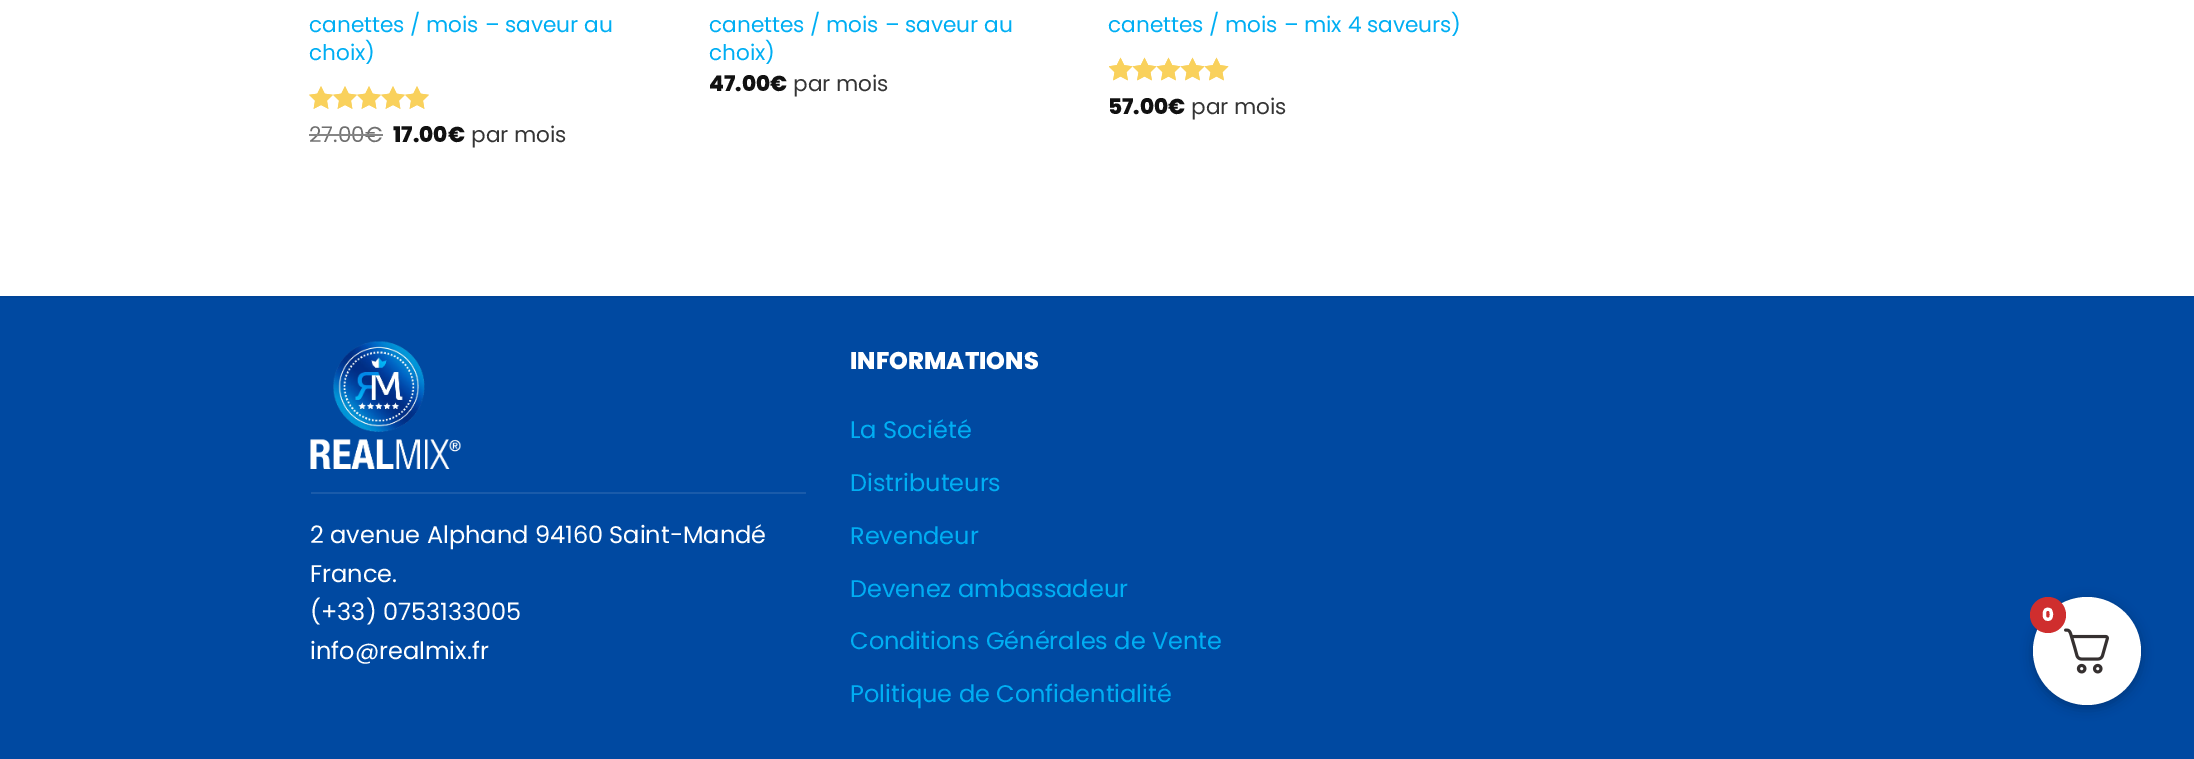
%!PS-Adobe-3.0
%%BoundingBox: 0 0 2194 759
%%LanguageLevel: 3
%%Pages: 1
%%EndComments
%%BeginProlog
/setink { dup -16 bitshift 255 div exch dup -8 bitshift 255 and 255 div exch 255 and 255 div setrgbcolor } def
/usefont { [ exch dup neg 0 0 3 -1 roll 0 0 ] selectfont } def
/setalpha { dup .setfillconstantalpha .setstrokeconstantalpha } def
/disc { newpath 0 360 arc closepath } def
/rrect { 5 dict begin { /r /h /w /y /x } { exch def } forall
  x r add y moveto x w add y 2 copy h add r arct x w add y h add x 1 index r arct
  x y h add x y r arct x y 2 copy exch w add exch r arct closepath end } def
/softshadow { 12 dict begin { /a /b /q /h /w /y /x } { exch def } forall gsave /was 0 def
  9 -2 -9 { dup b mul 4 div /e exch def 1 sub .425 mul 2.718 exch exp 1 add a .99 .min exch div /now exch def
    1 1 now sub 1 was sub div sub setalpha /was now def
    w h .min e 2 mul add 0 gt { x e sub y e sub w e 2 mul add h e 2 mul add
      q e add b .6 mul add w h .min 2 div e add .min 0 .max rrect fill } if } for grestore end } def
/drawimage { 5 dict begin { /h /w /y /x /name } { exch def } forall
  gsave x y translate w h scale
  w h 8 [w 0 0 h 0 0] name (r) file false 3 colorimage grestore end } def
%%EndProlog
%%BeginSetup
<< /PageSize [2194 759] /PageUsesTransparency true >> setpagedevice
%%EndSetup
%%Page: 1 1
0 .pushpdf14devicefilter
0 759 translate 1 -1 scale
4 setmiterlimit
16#FFFFFF setink
0 0 2194 759 rectfill
/Poppins-Regular 21.6 usefont
16#00AEF3 setink
309 32 moveto (canettes / mois – saveur au) show
309 60 moveto (choix\)) show
(img1.raw) 309 86 120 23 drawimage
(img2.raw) 309 86 120 23 drawimage
16#707070 setink
309 142 moveto (27.00) show
16#868686 setink
309 134 57 2 rectfill
16#707070 setink
365 142 moveto (€) show
16#868686 setink
366 134 17 2 rectfill
/Poppins-ExtraBold 21.6 usefont
16#111111 setink
393 142 moveto (17.00€) show
/Poppins-Regular 21.6 usefont
16#353535 setink
471 142 moveto (par mois) show
16#00AEF3 setink
709 32 moveto (canettes / mois – saveur au) show
709 60 moveto (choix\)) show
/Poppins-ExtraBold 21.6 usefont
16#111111 setink
709 91 moveto (47.00€) show
/Poppins-Regular 21.6 usefont
16#353535 setink
793 91 moveto (par mois) show
16#00AEF3 setink
1108 32 moveto (canettes / mois – mix 4 saveurs\)) show
(img3.raw) 1109 57 120 24 drawimage
(img4.raw) 1109 57 120 24 drawimage
/Poppins-ExtraBold 21.6 usefont
16#111111 setink
1108 114 moveto (57.00€) show
/Poppins-Regular 21.6 usefont
16#353535 setink
1191 114 moveto (par mois) show
16#0049A1 setink
0 298 2194 461 rectfill
16#004599 setink
0 296 2194 2 rectfill
(img5.raw) 310 341 151 128 drawimage
16#1A5BAA setink
311 492 495 2 rectfill
/Poppins-Regular 24 usefont
16#FFFFFF setink
[
    [(2 avenue Alphand 94160 Saint-Mandé) 310 543]
    [(France.) 310 582]
    [(\(+33\) 0753133005) 310 620]
    [(info@realmix.fr) 310 659]
] { aload pop moveto show } forall
/Poppins-ExtraBold 24 usefont
850 369 moveto (INFORMATIONS) show
/Poppins-Regular 24 usefont
16#00AEF3 setink
[
    [(La Société) 850 438]
    [(Distributeurs) 850 491]
    [(Revendeur) 850 544]
    [(Devenez ambassadeur) 850 597]
    [(Conditions Générales de Vente) 850 649]
    [(Politique de Confidentialité) 850 702]
] { aload pop moveto show } forall
16#000000 setink
2033 600 108 108 54 6 0.25 softshadow
16#FFFFFF setink
2087 651 54 disc fill
(img6.raw) 2064 628 45 46 drawimage
16#CF2E2E setink
2048 615 18 disc fill
/Poppins-ExtraBold 18 usefont
16#FFFFFF setink
2042 621 moveto (0) show
.poppdf14devicefilter showpage
%%EOF
